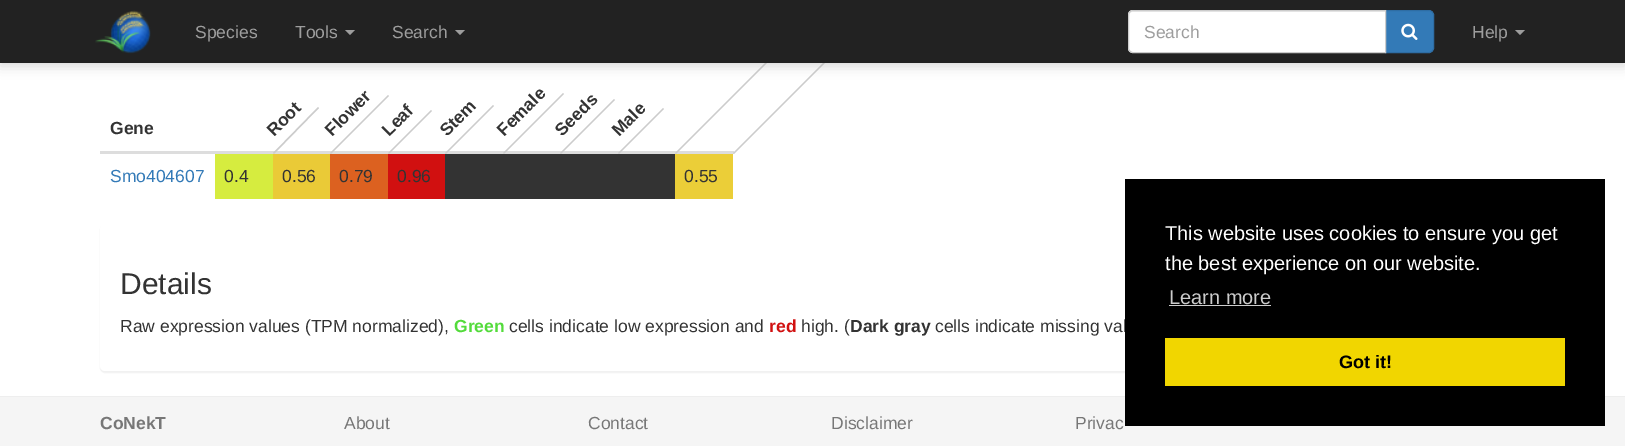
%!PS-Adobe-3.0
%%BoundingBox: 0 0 1625 446
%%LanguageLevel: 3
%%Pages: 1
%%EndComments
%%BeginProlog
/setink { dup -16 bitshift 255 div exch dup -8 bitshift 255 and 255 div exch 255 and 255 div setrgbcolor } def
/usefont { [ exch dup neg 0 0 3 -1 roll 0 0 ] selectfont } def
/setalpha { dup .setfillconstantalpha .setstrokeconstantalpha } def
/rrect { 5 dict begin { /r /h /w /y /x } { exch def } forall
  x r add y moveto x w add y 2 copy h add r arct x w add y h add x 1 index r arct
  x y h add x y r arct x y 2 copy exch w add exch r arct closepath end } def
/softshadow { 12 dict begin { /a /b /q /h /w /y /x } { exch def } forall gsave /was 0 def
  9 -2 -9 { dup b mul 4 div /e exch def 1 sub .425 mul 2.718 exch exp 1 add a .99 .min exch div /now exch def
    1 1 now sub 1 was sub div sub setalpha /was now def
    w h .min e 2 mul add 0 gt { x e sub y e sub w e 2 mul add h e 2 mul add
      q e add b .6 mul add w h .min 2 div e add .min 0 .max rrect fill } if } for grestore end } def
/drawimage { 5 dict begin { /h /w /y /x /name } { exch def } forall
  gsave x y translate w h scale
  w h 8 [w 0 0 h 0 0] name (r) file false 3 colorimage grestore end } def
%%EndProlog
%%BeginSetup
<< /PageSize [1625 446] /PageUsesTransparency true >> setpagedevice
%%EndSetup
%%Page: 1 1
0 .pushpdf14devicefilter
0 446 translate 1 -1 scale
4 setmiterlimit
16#FFFFFF setink
0 0 1625 446 rectfill
16#DDDDDD setink
100 151 634 3 rectfill
16#CCCCCC setink
675 153 moveto 788 40 lineto 789 41 lineto 676 154 lineto closepath fill
733 153 moveto 837 49 lineto 838 50 lineto 734 154 lineto closepath fill
16#B1B1B1 setink
0 4 1625 62 0 6 0.5 softshadow
16#222222 setink
0 0 1625 63 rectfill
(img1.raw) 95 10 56 44 drawimage
/LiberationSans-Regular 17.5 usefont
16#9D9D9D setink
195 38 moveto (Species) show
295 38 moveto (Tools) show
345 30 moveto 355 30 lineto 350 35 lineto closepath fill
392 38 moveto (Search) show
455 30 moveto 465 30 lineto 460 35 lineto closepath fill
16#337AB7 setink
1385.5 10.5 moveto 1429 10.5 lineto 1431.5 10.5 1433.5 12.5 1433.5 15 curveto 1433.5 48 lineto 1433.5 50.5 1431.5 52.5 1429 52.5 curveto 1385.5 52.5 lineto closepath gsave fill grestore
16#2E6DA4 setink
stroke
16#FFFFFF setink
1133 10 moveto 1386 10 lineto 1386 53 lineto 1133 53 lineto 1130 53 1128 51 1128 48 curveto 1128 15 lineto 1128 12 1130 10 1133 10 curveto closepath fill
16#ECECEC setink
1132 12 moveto 1385 12 lineto 1385 11 lineto 1133 11 lineto 1131 11 1129 13 1129 15 curveto 1129 16 lineto 1129 14 1130 12 1132 12 curveto closepath fill
16#CCCCCC setink
1133 10.5 moveto 1385.5 10.5 lineto 1385.5 52.5 lineto 1133 52.5 lineto 1130.5 52.5 1128.5 50.5 1128.5 48 curveto 1128.5 15 lineto 1128.5 12.5 1130.5 10.5 1133 10.5 curveto closepath stroke
16#9D9D9D setink
1144 38 moveto (Search) show
(img2.raw) 1401 23 17 17 drawimage
1472 38 moveto (Help) show
1515 30 moveto 1525 30 lineto 1520 35 lineto closepath fill
/LiberationSans-Bold 17.5 usefont
16#333333 setink
110 134 moveto (Gene) show
16#CCCCCC setink
273 153 moveto 318 107 lineto 319 108 lineto 274 154 lineto closepath fill
16#333333 setink
gsave 274 137 translate -45 rotate 0 0 moveto (Root) show grestore
16#CCCCCC setink
330 153 moveto 388 95 lineto 389 96 lineto 331 154 lineto closepath fill
16#333333 setink
gsave 332 137 translate -45 rotate 0 0 moveto (Flower) show grestore
16#CCCCCC setink
388 153 moveto 431 110 lineto 432 111 lineto 389 154 lineto closepath fill
16#333333 setink
gsave 389 137 translate -45 rotate 0 0 moveto (Leaf) show grestore
16#CCCCCC setink
445 153 moveto 493 105 lineto 494 106 lineto 446 154 lineto closepath fill
16#333333 setink
gsave 447 137 translate -45 rotate 0 0 moveto (Stem) show grestore
16#CCCCCC setink
503 153 moveto 563 93 lineto 564 94 lineto 504 154 lineto closepath fill
16#333333 setink
gsave 504 137 translate -45 rotate 0 0 moveto (Female) show grestore
16#CCCCCC setink
560 153 moveto 614 99 lineto 615 100 lineto 561 154 lineto closepath fill
16#333333 setink
gsave 562 137 translate -45 rotate 0 0 moveto (Seeds) show grestore
16#CCCCCC setink
618 153 moveto 663 108 lineto 664 109 lineto 619 154 lineto closepath fill
16#333333 setink
gsave 619 137 translate -45 rotate 0 0 moveto (Male) show grestore
/LiberationSans-Regular 17.5 usefont
16#337AB7 setink
110 182 moveto (Smo404607) show
16#D6EC3F setink
215 154 58 45 rectfill
16#333333 setink
224 182 moveto (0.4) show
16#EACA37 setink
273 154 57 45 rectfill
16#333333 setink
282 182 moveto (0.56) show
16#DC6120 setink
330 154 58 45 rectfill
16#333333 setink
339 182 moveto (0.79) show
16#D11010 setink
388 154 57 45 rectfill
16#333333 setink
397 182 moveto (0.96) show
445 154 230 45 rectfill
16#EBCE38 setink
675 154 58 45 rectfill
16#333333 setink
684 182 moveto (0.55) show
16#000000 setink
100 225 1425 148 5 0.5 0.05 softshadow
16#FFFFFF setink
100 224 1425 147 5 rrect fill
/LiberationSans-Regular 30 usefont
16#333333 setink
120 294 moveto (Details) show
/LiberationSans-Regular 17.5 usefont
120 332 moveto (Raw expression values \(TPM normalized\),) show
/LiberationSans-Bold 17.5 usefont
16#53DB3B setink
454 332 moveto (Green) show
/LiberationSans-Regular 17.5 usefont
16#333333 setink
509 332 moveto (cells indicate low expression and) show
/LiberationSans-Bold 17.5 usefont
16#D11010 setink
769 332 moveto (red) show
/LiberationSans-Regular 17.5 usefont
16#333333 setink
801 332 moveto (high. \() show
/LiberationSans-Bold 17.5 usefont
850 332 moveto (Dark gray) show
/LiberationSans-Regular 17.5 usefont
935 332 moveto (cells indicate missing val) show
[
    [0 397 1625 49 16#F5F5F5]
    [0 396 1625 1 16#EEEEEE]
    [1125 179 480 247 16#000000]
] { aload pop setink rectfill } forall
/LiberationSans-Regular 20 usefont
16#FFFFFF setink
1165 240 moveto (This website uses cookies to ensure you get) show
1165 270 moveto (the best experience on our website.) show
16#CCCCCC setink
1169 304 moveto (Learn more) show
1169 305 102 1 rectfill
16#F1D600 setink
1165 338 400 48 rectfill
/LiberationSans-Bold 18 usefont
16#000000 setink
1339 368 moveto (Got it!) show
/LiberationSans-Bold 17.5 usefont
16#777777 setink
100 429 moveto (CoNekT) show
/LiberationSans-Regular 17.5 usefont
[
    [(About) 344 429]
    [(Contact) 588 429]
    [(Disclaimer) 831 429]
    [(Privac) 1075 429]
] { aload pop moveto show } forall
.poppdf14devicefilter showpage
%%EOF
